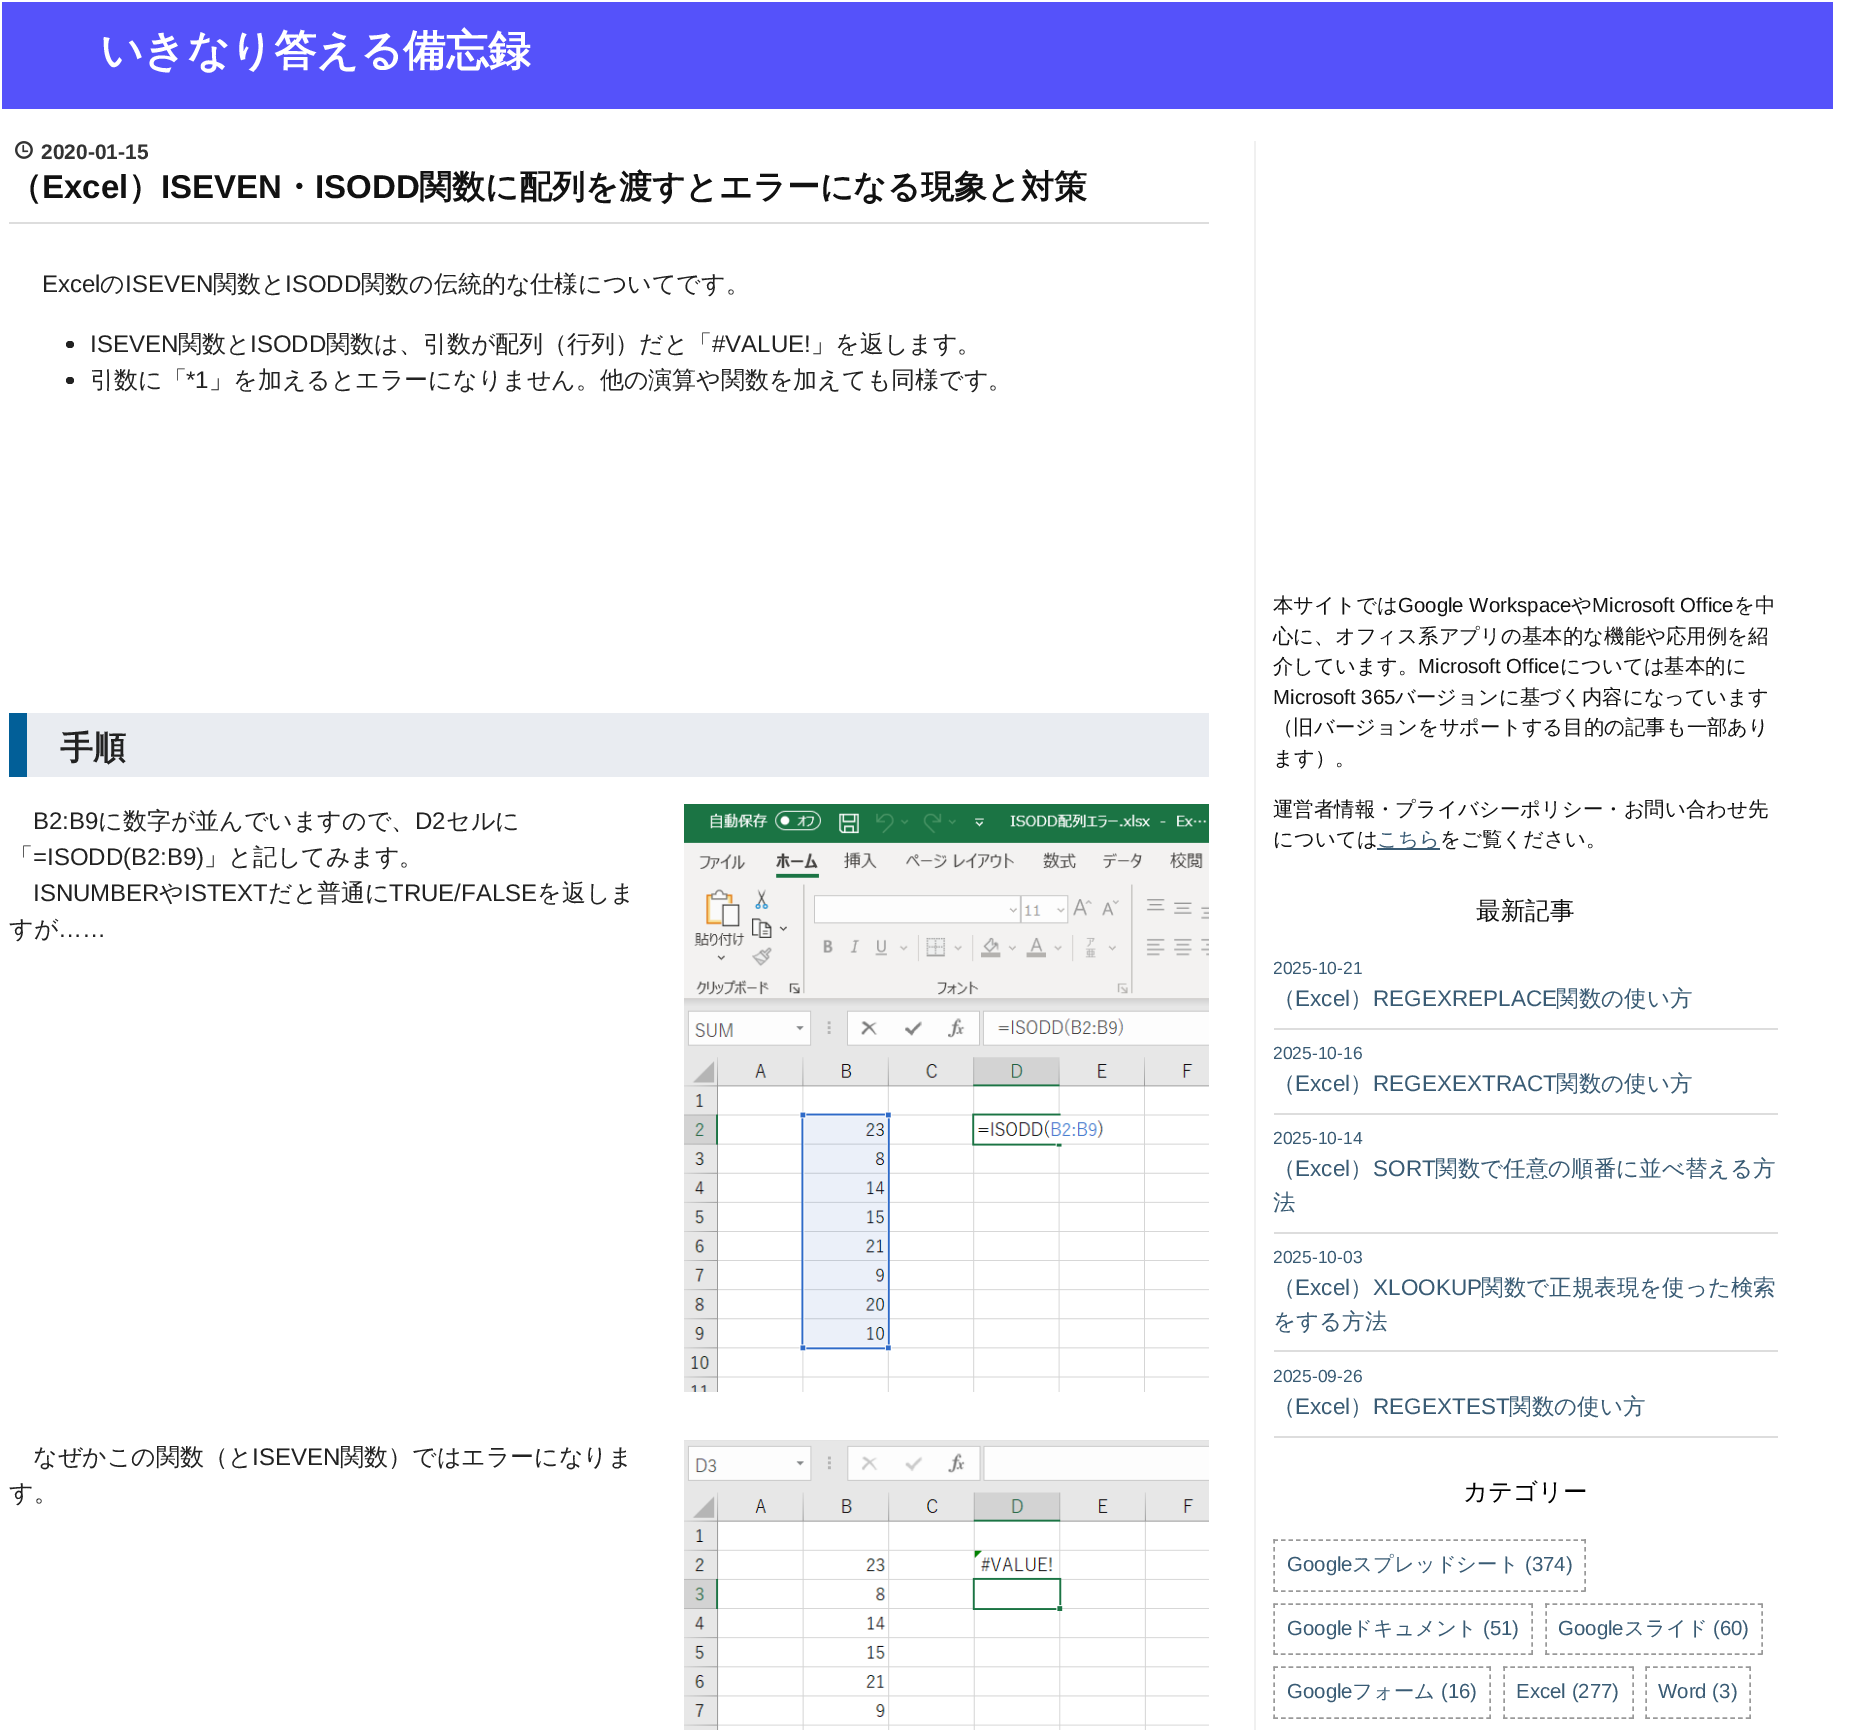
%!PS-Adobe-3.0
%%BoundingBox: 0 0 1861 1730
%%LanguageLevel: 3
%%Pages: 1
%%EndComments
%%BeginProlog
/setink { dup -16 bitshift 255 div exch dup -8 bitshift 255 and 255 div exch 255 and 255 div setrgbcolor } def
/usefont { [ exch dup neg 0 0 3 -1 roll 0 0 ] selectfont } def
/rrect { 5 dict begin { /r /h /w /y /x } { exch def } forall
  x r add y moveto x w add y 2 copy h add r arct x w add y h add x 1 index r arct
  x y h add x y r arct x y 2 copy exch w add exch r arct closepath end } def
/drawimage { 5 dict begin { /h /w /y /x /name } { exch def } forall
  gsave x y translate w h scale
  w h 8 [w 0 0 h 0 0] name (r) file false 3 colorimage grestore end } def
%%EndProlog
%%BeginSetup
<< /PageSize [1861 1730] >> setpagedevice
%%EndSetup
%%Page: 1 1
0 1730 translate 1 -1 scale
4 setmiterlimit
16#FFFFFF setink
0 0 1861 1730 rectfill
16#5552FA setink
2 2 1831 107 rectfill
/WenQuanYiZenHei-Bold 42.5 usefont
16#FFFFFF setink
100 65 moveto (いきなり答える備忘録) show
16#F0F0F0 setink
1254 141 2 1589 rectfill
16#DDDDDD setink
9 222 1200 2 rectfill
(img1.raw) 15 141 18 18 drawimage
/LiberationSans-Bold 21 usefont
16#333333 setink
41 159 moveto (2020-01-15) show
/WenQuanYiZenHei-Bold 33 usefont
16#111111 setink
9 198 moveto (（) show
/LiberationSans-Bold 33 usefont
42 198 moveto (Excel) show
/WenQuanYiZenHei-Bold 33 usefont
128 198 moveto (）) show
/LiberationSans-Bold 33 usefont
161 198 moveto (ISEVEN) show
/WenQuanYiZenHei-Bold 33 usefont
282 198 moveto (・) show
/LiberationSans-Bold 33 usefont
315 198 moveto (ISODD) show
/WenQuanYiZenHei-Bold 33 usefont
419 198 moveto (関数に配列を渡すとエラーになる現象と対策) show
/LiberationSans-Regular 24 usefont
16#222222 setink
42 292 moveto (Excel) show
/WenQuanYiZenHei-Medium 24 usefont
100 292 moveto (の) show
/LiberationSans-Regular 24 usefont
125 292 moveto (ISEVEN) show
/WenQuanYiZenHei-Medium 24 usefont
213 292 moveto (関数と) show
/LiberationSans-Regular 24 usefont
285 292 moveto (ISODD) show
/WenQuanYiZenHei-Medium 24 usefont
361 292 moveto (関数の伝統的な仕様についてです。) show
66 341 8 7 3.5 rrect fill
/LiberationSans-Regular 24 usefont
90 352 moveto (ISEVEN) show
/WenQuanYiZenHei-Medium 24 usefont
178 352 moveto (関数と) show
/LiberationSans-Regular 24 usefont
250 352 moveto (ISODD) show
/WenQuanYiZenHei-Medium 24 usefont
326 352 moveto (関数は、引数が配列（行列）だと「) show
/LiberationSans-Regular 24 usefont
712 352 moveto (#VALUE!) show
/WenQuanYiZenHei-Medium 24 usefont
811 352 moveto (」を返します。) show
66 377 8 7 3.5 rrect fill
90 388 moveto (引数に「) show
/LiberationSans-Regular 24 usefont
186 388 moveto (*1) show
/WenQuanYiZenHei-Medium 24 usefont
209 388 moveto (」を加えるとエラーになりません。他の演算や関数を加えても同様です。) show
16#E9ECF1 setink
27 713 1182 64 rectfill
16#025F98 setink
9 713 18 64 rectfill
/WenQuanYiZenHei-Bold 33 usefont
16#222222 setink
60 759 moveto (手順) show
/LiberationSans-Regular 24 usefont
33 829 moveto (B2:B9) show
/WenQuanYiZenHei-Medium 24 usefont
98 829 moveto (に数字が並んでいますので、) show
/LiberationSans-Regular 24 usefont
415 829 moveto (D2) show
/WenQuanYiZenHei-Medium 24 usefont
446 829 moveto (セルに) show
9 865 moveto (「) show
/LiberationSans-Regular 24 usefont
33 865 moveto (=ISODD\(B2:B9\)) show
/WenQuanYiZenHei-Medium 24 usefont
204 865 moveto (」と記してみます。) show
/LiberationSans-Regular 24 usefont
33 901 moveto (ISNUMBER) show
/WenQuanYiZenHei-Medium 24 usefont
159 901 moveto (や) show
/LiberationSans-Regular 24 usefont
184 901 moveto (ISTEXT) show
/WenQuanYiZenHei-Medium 24 usefont
268 901 moveto (だと普通に) show
/LiberationSans-Regular 24 usefont
389 901 moveto (TRUE/FALSE) show
/WenQuanYiZenHei-Medium 24 usefont
537 901 moveto (を返しま) show
9 937 moveto (すが) show
/LiberationSans-Regular 24 usefont
58 937 moveto (……) show
(img2.raw) 684 804 525 588 drawimage
/WenQuanYiZenHei-Medium 24 usefont
33 1465 moveto (なぜかこの関数（と) show
/LiberationSans-Regular 24 usefont
252 1465 moveto (ISEVEN) show
/WenQuanYiZenHei-Medium 24 usefont
340 1465 moveto (関数）ではエラーになりま) show
9 1501 moveto (す。) show
(img3.raw) 684 1440 525 290 drawimage
/WenQuanYiZenHei-Medium 20.4 usefont
16#111111 setink
1273 612 moveto (本サイトでは) show
/LiberationSans-Regular 20.4 usefont
1398 612 moveto (Google Workspace) show
/WenQuanYiZenHei-Medium 20.4 usefont
1571 612 moveto (や) show
/LiberationSans-Regular 20.4 usefont
1592 612 moveto (Microsoft Office) show
/WenQuanYiZenHei-Medium 20.4 usefont
[
    [(を中) 1734 612]
    [(心に、オフィス系アプリの基本的な機能や応用例を紹) 1273 643]
    [(介しています。) 1273 673]
] { aload pop moveto show } forall
/LiberationSans-Regular 20.4 usefont
1418 673 moveto (Microsoft Office) show
/WenQuanYiZenHei-Medium 20.4 usefont
1560 673 moveto (については基本的に) show
/LiberationSans-Regular 20.4 usefont
1273 704 moveto (Microsoft 365) show
/WenQuanYiZenHei-Medium 20.4 usefont
[
    [(バージョンに基づく内容になっています) 1395 704]
    [(（旧バージョンをサポートする目的の記事も一部あり) 1273 734]
    [(ます）。) 1273 765]
    [(運営者情報・プライバシーポリシー・お問い合わせ先) 1273 816]
    [(については) 1273 846]
] { aload pop moveto show } forall
16#395B74 setink
1377 848 63 2 rectfill
1377 846 moveto (こちら) show
16#111111 setink
1440 846 moveto (をご覧ください。) show
/WenQuanYiZenHei-Medium 24.5 usefont
1476 919 moveto (最新記事) show
16#DDDDDD setink
1274 1028 504 2 rectfill
/LiberationSans-Regular 17.5 usefont
16#395B74 setink
1273 974 moveto (2025-10-21) show
/WenQuanYiZenHei-Medium 22.5 usefont
1273 1006 moveto (（) show
/LiberationSans-Regular 22.5 usefont
1295 1006 moveto (Excel) show
/WenQuanYiZenHei-Medium 22.5 usefont
1350 1006 moveto (）) show
/LiberationSans-Regular 22.5 usefont
1373 1006 moveto (REGEXREPLACE) show
/WenQuanYiZenHei-Medium 22.5 usefont
1556 1006 moveto (関数の使い方) show
16#DDDDDD setink
1274 1113 504 2 rectfill
/LiberationSans-Regular 17.5 usefont
16#395B74 setink
1273 1059 moveto (2025-10-16) show
/WenQuanYiZenHei-Medium 22.5 usefont
1273 1091 moveto (（) show
/LiberationSans-Regular 22.5 usefont
1295 1091 moveto (Excel) show
/WenQuanYiZenHei-Medium 22.5 usefont
1350 1091 moveto (）) show
/LiberationSans-Regular 22.5 usefont
1373 1091 moveto (REGEXEXTRACT) show
/WenQuanYiZenHei-Medium 22.5 usefont
1556 1091 moveto (関数の使い方) show
16#DDDDDD setink
1274 1232 504 2 rectfill
/LiberationSans-Regular 17.5 usefont
16#395B74 setink
1273 1144 moveto (2025-10-14) show
/WenQuanYiZenHei-Medium 22.5 usefont
1273 1176 moveto (（) show
/LiberationSans-Regular 22.5 usefont
1295 1176 moveto (Excel) show
/WenQuanYiZenHei-Medium 22.5 usefont
1350 1176 moveto (）) show
/LiberationSans-Regular 22.5 usefont
1373 1176 moveto (SORT) show
/WenQuanYiZenHei-Medium 22.5 usefont
1435 1176 moveto (関数で任意の順番に並べ替える方) show
1273 1210 moveto (法) show
16#DDDDDD setink
1274 1350 504 2 rectfill
/LiberationSans-Regular 17.5 usefont
16#395B74 setink
1273 1263 moveto (2025-10-03) show
/WenQuanYiZenHei-Medium 22.5 usefont
1273 1295 moveto (（) show
/LiberationSans-Regular 22.5 usefont
1295 1295 moveto (Excel) show
/WenQuanYiZenHei-Medium 22.5 usefont
1350 1295 moveto (）) show
/LiberationSans-Regular 22.5 usefont
1373 1295 moveto (XLOOKUP) show
/WenQuanYiZenHei-Medium 22.5 usefont
1481 1295 moveto (関数で正規表現を使った検索) show
1273 1329 moveto (をする方法) show
16#DDDDDD setink
1274 1436 504 2 rectfill
/LiberationSans-Regular 17.5 usefont
16#395B74 setink
1273 1382 moveto (2025-09-26) show
/WenQuanYiZenHei-Medium 22.5 usefont
1273 1414 moveto (（) show
/LiberationSans-Regular 22.5 usefont
1295 1414 moveto (Excel) show
/WenQuanYiZenHei-Medium 22.5 usefont
1350 1414 moveto (）) show
/LiberationSans-Regular 22.5 usefont
1373 1414 moveto (REGEXTEST) show
/WenQuanYiZenHei-Medium 22.5 usefont
1509 1414 moveto (関数の使い方) show
/WenQuanYiZenHei-Medium 24.5 usefont
16#000000 setink
1463 1500 moveto (カテゴリー) show
16#999999 setink
1.5 setlinewidth
[4.5 3] 0 setdash
1273.5 1540 moveto 1585.5 1540 lineto stroke
[4.5 3.5] 0 setdash
1585 1539 moveto 1585 1591.5 lineto stroke
[4.5 3] 0 setdash
1273.5 1591 moveto 1585.5 1591 lineto stroke
[4.5 3.5] 0 setdash
1274 1539 moveto 1274 1591.5 lineto stroke
/LiberationSans-Regular 20.4 usefont
16#395B74 setink
1287 1571 moveto (Google) show
/WenQuanYiZenHei-Medium 20.4 usefont
1352 1571 moveto (スプレッドシート) show
/LiberationSans-Regular 20.4 usefont
1525 1571 moveto (\(374\)) show
16#999999 setink
[4.5 3] 0 setdash
1273.5 1604 moveto 1533 1604 lineto stroke
[4.5 3.25] 0 setdash
1532 1603.5 moveto 1532 1654.5 lineto stroke
[4.5 3] 0 setdash
1273.5 1654 moveto 1533 1654 lineto stroke
[4.5 3.25] 0 setdash
1274 1603.5 moveto 1274 1654.5 lineto stroke
16#395B74 setink
1287 1635 moveto (Google) show
/WenQuanYiZenHei-Medium 20.4 usefont
1352 1635 moveto (ドキュメント) show
/LiberationSans-Regular 20.4 usefont
1483 1635 moveto (\(51\)) show
16#999999 setink
[4.5 3.1] 0 setdash
1545 1604 moveto 1762.5 1604 lineto stroke
[4.5 3.25] 0 setdash
1762 1603.5 moveto 1762 1654.5 lineto stroke
[4.5 3.1] 0 setdash
1545 1654 moveto 1762.5 1654 lineto stroke
[4.5 3.25] 0 setdash
1546 1603.5 moveto 1546 1654.5 lineto stroke
16#395B74 setink
1558 1635 moveto (Google) show
/WenQuanYiZenHei-Medium 20.4 usefont
1624 1635 moveto (スライド) show
/LiberationSans-Regular 20.4 usefont
1713 1635 moveto (\(60\)) show
16#999999 setink
[4.5 3.1] 0 setdash
1273.5 1667 moveto 1491 1667 lineto stroke
[4.5 3.5] 0 setdash
1490 1666.5 moveto 1490 1719 lineto stroke
[4.5 3.1] 0 setdash
1273.5 1718 moveto 1491 1718 lineto stroke
[4.5 3.5] 0 setdash
1274 1666.5 moveto 1274 1719 lineto stroke
16#395B74 setink
1287 1698 moveto (Google) show
/WenQuanYiZenHei-Medium 20.4 usefont
1352 1698 moveto (フォーム) show
/LiberationSans-Regular 20.4 usefont
1441 1698 moveto (\(16\)) show
16#999999 setink
[4.5 2.91] 0 setdash
1503 1667 moveto 1633.5 1667 lineto stroke
[4.5 3.5] 0 setdash
1633 1666.5 moveto 1633 1719 lineto stroke
[4.5 2.91] 0 setdash
1503 1718 moveto 1633.5 1718 lineto stroke
[4.5 3.5] 0 setdash
1504 1666.5 moveto 1504 1719 lineto stroke
16#395B74 setink
1516 1698 moveto (Excel \(277\)) show
16#999999 setink
[4.5 3.22] 0 setdash
1645.5 1667 moveto 1750.5 1667 lineto stroke
[4.5 3.5] 0 setdash
1750 1666.5 moveto 1750 1719 lineto stroke
[4.5 3.22] 0 setdash
1645.5 1718 moveto 1750.5 1718 lineto stroke
[4.5 3.5] 0 setdash
1646 1666.5 moveto 1646 1719 lineto stroke
16#395B74 setink
1658 1698 moveto (Word \(3\)) show
showpage
%%EOF
